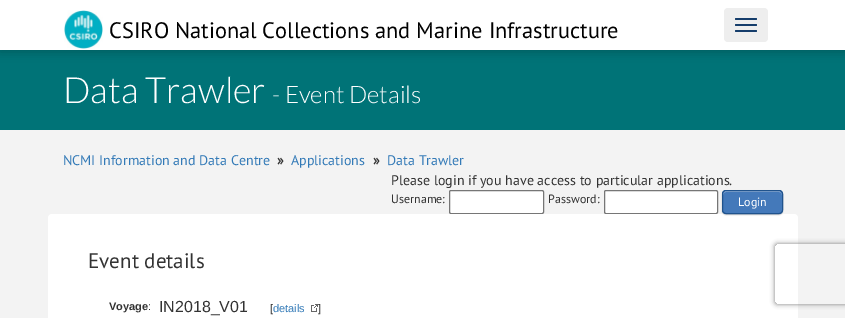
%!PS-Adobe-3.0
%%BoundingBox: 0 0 845 318
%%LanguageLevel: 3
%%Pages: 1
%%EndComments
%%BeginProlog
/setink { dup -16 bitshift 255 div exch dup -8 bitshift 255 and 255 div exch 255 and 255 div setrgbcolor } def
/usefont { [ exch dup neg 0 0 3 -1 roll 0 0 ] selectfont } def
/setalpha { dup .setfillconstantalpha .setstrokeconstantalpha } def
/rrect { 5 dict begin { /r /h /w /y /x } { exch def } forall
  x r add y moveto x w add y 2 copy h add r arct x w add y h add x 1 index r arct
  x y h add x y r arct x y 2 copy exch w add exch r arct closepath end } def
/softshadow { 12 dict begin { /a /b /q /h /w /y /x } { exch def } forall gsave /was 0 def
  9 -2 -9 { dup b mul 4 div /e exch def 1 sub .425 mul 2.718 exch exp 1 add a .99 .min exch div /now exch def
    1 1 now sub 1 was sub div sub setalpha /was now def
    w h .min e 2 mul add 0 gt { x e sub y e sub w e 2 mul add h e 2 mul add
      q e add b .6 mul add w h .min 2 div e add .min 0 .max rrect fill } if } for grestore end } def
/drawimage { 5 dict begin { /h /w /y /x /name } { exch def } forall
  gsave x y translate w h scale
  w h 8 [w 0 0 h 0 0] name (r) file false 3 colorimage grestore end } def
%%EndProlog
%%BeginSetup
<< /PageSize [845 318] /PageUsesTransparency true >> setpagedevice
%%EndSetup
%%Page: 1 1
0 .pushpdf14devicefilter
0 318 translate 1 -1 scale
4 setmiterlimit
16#F3F3F3 setink
0 0 845 318 rectfill
16#007377 setink
0 50 845 80 rectfill
16#000000 setink
0 2 845 50 0 5 0.2 softshadow
16#FFFFFF setink
0 0 845 50 rectfill
(img1.raw) 64 10 39 39 drawimage
/PTSans-Regular 22.4 usefont
16#000000 setink
109 38 moveto (CSIRO National Collections and Marine Infrastructure) show
16#EEEEEE setink
724 8 44 34 4 rrect fill
16#153D6B setink
735 18 22 2 1 rrect fill
735 24 22 2 1 rrect fill
735 30 22 2 1 rrect fill
/Lato-Light 36 usefont
16#FFFFFF setink
63 103 moveto (Data Trawler) show
/Lato-Light 24 usefont
272 103 moveto (- Event Details) show
/PTSans-Regular 14 usefont
16#337AB7 setink
63 165 moveto (NCMI Information and Data Centre) show
/PTSans-Bold 14 usefont
16#333333 setink
277 165 moveto (») show
/PTSans-Regular 14 usefont
16#337AB7 setink
291 165 moveto (Applications) show
/PTSans-Bold 14 usefont
16#333333 setink
373 165 moveto (») show
/PTSans-Regular 14 usefont
16#337AB7 setink
387 165 moveto (Data Trawler) show
16#333333 setink
391 185 moveto (Please login if you have access to particular applications.) show
/PTSans-Regular 12 usefont
391 203 moveto (Username:) show
16#FFFFFF setink
449.5 190.5 94 23 1.5 rrect gsave fill grestore
16#767676 setink
stroke
16#333333 setink
548 203 moveto (Password:) show
16#FFFFFF setink
604.5 190.5 113 23 1.5 rrect gsave fill grestore
16#767676 setink
stroke
16#FFFFFF setink
48 214 750 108 4 rrect fill
16#000000 setink
722 191 61 24 4 0.5 0.2 softshadow
16#4479BA setink
722 190 61 24 4 rrect fill
16#8FAFD6 setink
726 192 moveto 779 192 lineto 781 192 782 193 782 195 curveto 782 189 775 191 770 191 curveto 735 191 lineto 730 191 723 189 723 195 curveto 723 193 724 192 726 192 curveto closepath fill
16#20538D setink
722.5 190.5 60 23 3.5 rrect stroke
16#FFFFFF setink
738 206 moveto (Login) show
gsave
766 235 moveto 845 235 lineto 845 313 lineto 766 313 lineto closepath 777 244 moveto 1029 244 lineto 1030 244 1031 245 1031 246 curveto 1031 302 lineto 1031 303 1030 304 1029 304 curveto 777 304 lineto 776 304 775 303 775 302 curveto 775 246 lineto 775 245 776 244 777 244 curveto closepath eoclip newpath
16#808080 setink
775 244 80 60 2 2.5 1 softshadow
grestore
/PTSans-Regular 21 usefont
16#333333 setink
88 268 moveto (Event details) show
/LiberationSans-Bold 11 usefont
109 310 moveto (Voyage) show
/LiberationSans-Regular 11 usefont
148 310 moveto (:) show
/LiberationSans-Regular 16 usefont
159 312 moveto (IN2018_V01) show
/LiberationSans-Regular 11 usefont
270 312 moveto ([) show
16#337AB7 setink
273 312 moveto (details) show
(img2.raw) 311 304 7 8 drawimage
16#333333 setink
318 312 moveto (]) show
.poppdf14devicefilter showpage
%%EOF
